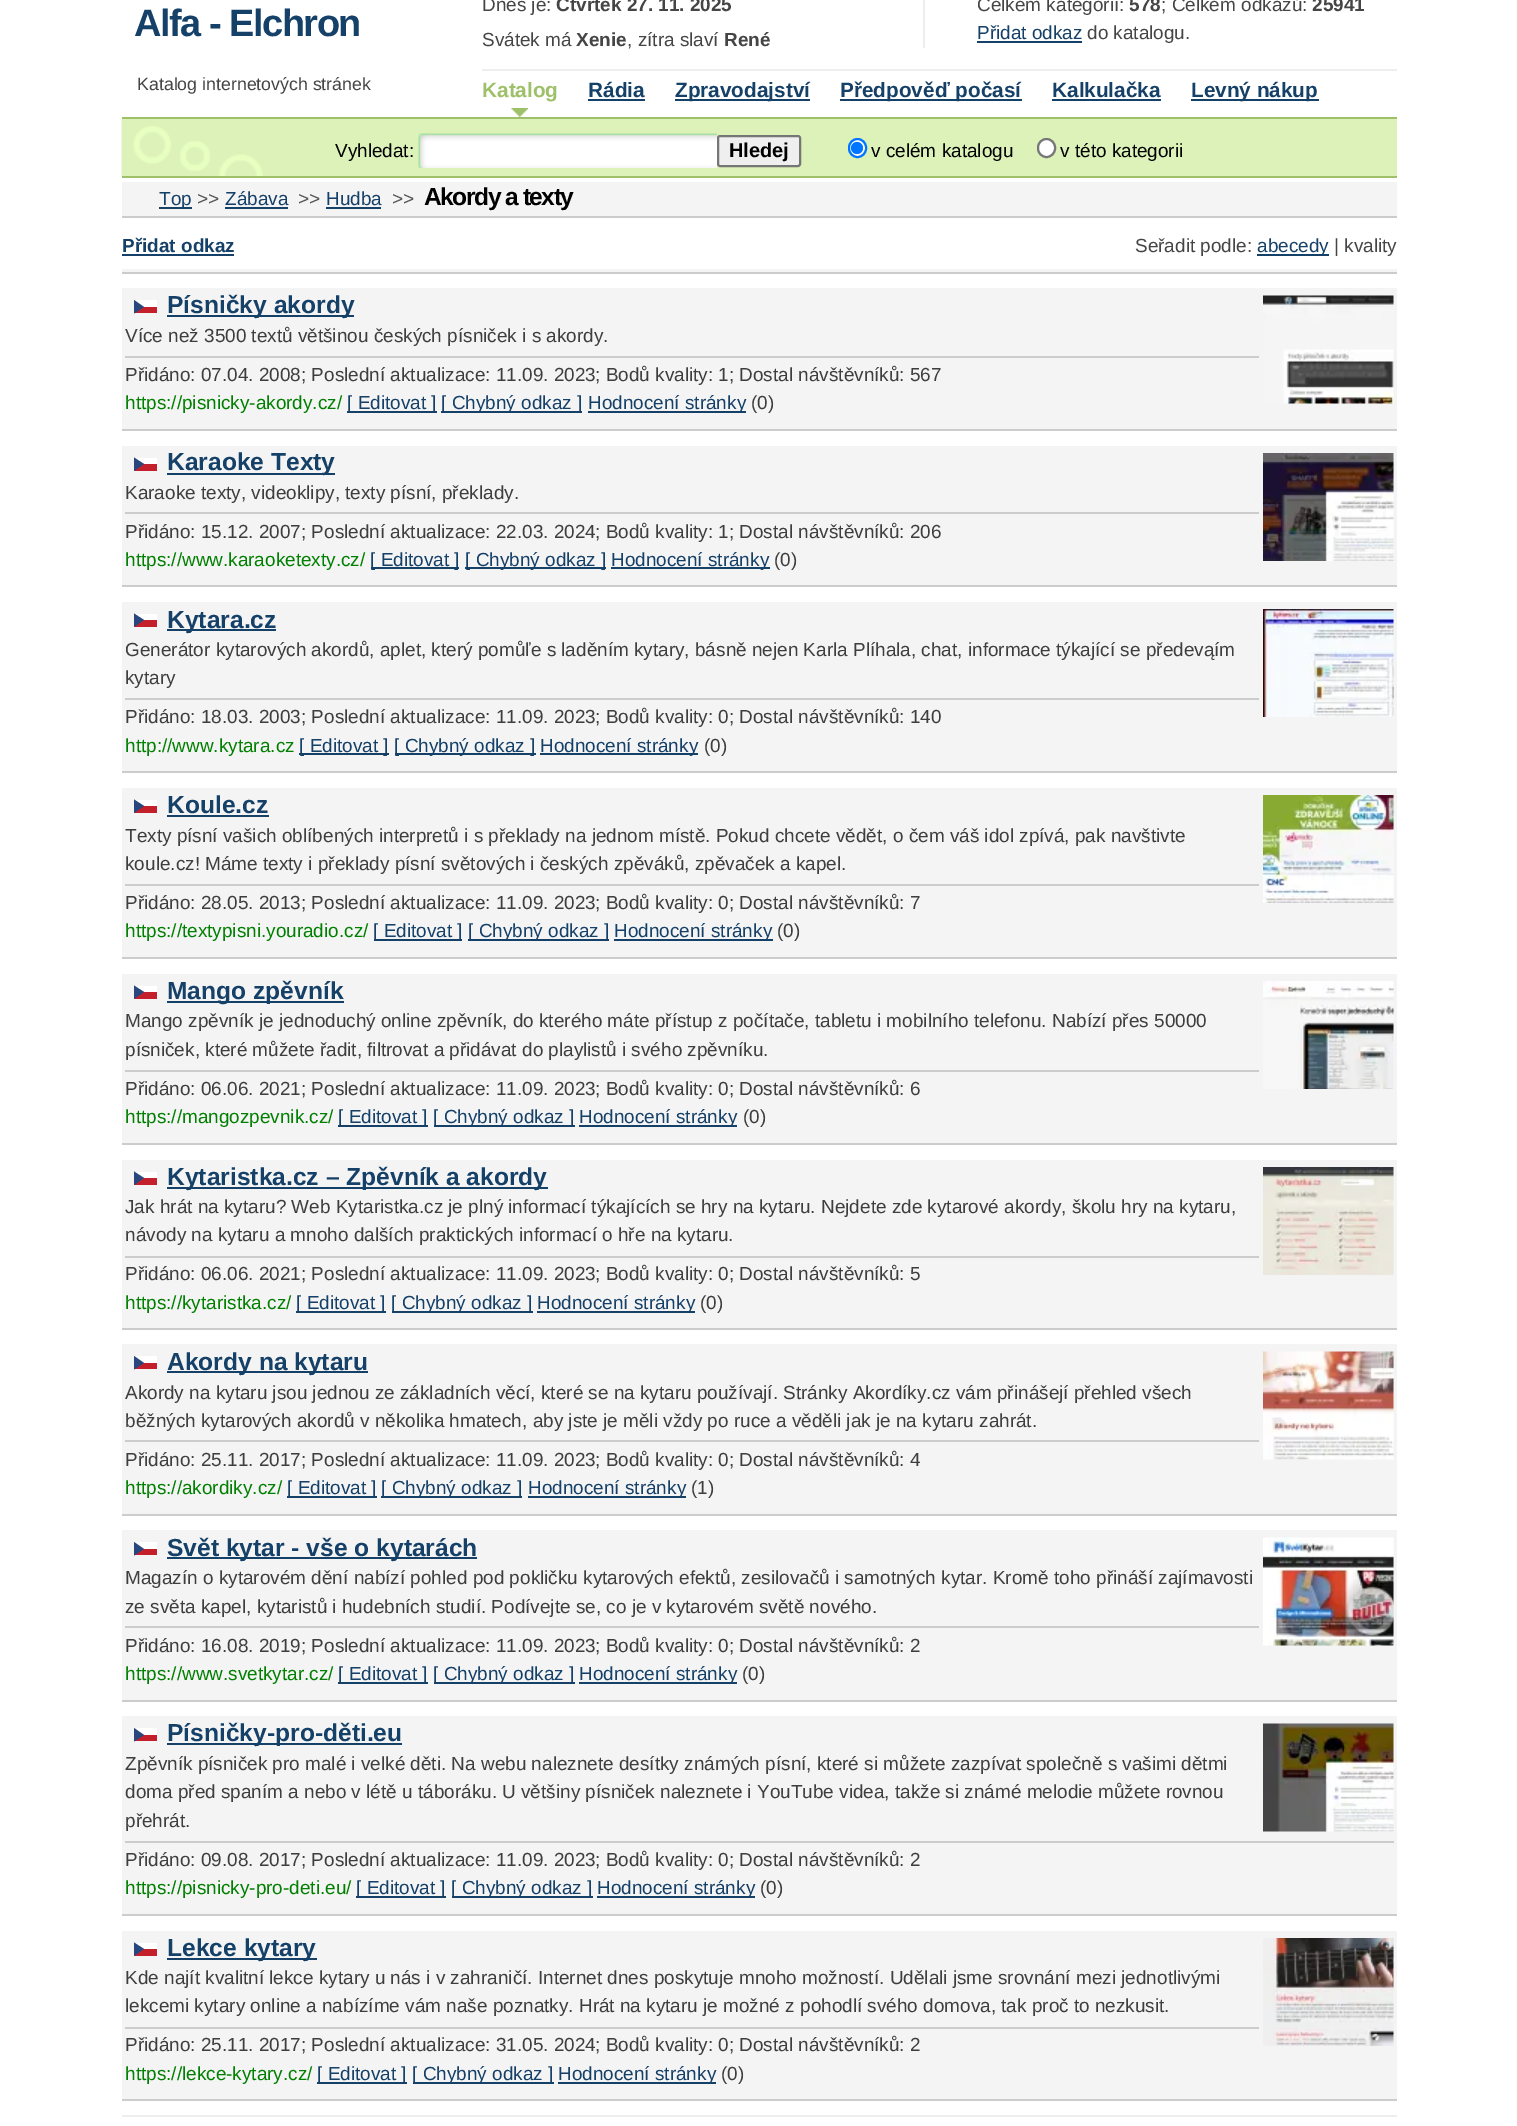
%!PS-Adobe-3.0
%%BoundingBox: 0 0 1517 2126
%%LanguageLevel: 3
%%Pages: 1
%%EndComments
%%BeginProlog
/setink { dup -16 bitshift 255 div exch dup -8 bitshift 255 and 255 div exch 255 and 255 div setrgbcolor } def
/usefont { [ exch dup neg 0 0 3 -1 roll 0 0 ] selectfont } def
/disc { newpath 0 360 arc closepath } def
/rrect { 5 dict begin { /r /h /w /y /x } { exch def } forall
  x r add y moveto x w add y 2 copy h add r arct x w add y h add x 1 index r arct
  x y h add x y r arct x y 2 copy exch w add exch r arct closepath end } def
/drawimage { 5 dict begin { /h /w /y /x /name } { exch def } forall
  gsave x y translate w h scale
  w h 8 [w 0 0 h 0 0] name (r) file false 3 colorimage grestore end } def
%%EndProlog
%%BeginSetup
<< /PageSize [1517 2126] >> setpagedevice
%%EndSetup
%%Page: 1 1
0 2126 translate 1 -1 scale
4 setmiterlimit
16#FFFFFF setink
0 0 1517 2126 rectfill
/LiberationSans-Bold 38 usefont
16#154068 setink
134 36 moveto -1.5 0 (Alfa - Elchron) ashow
16#EEEEEE setink
482 69 915 2 rectfill
/LiberationSans-Regular 18.95 usefont
16#454545 setink
482 11 moveto (Dnes je:) show
/LiberationSans-Bold 18.95 usefont
556 11 moveto (Čtvrtek 27. 11. 2025) show
/LiberationSans-Regular 18.95 usefont
482 46 moveto (Svátek má) show
/LiberationSans-Bold 18.95 usefont
576 46 moveto (Xenie) show
/LiberationSans-Regular 18.95 usefont
627 46 moveto (, zítra slaví) show
/LiberationSans-Bold 18.95 usefont
724 46 moveto (René) show
16#EEEEEE setink
923 0 2 48 rectfill
/LiberationSans-Regular 18.95 usefont
16#454545 setink
977 11 moveto (Celkem kategorií:) show
/LiberationSans-Bold 18.95 usefont
1129 11 moveto (578) show
/LiberationSans-Regular 18.95 usefont
1161 11 moveto (; Celkem odkazů:) show
/LiberationSans-Bold 18.95 usefont
1312 11 moveto (25941) show
/LiberationSans-Regular 18.95 usefont
16#154068 setink
977 39 moveto (Přidat odkaz) show
977 41 105 2 rectfill
16#454545 setink
1087 39 moveto (do katalogu.) show
/LiberationSans-Regular 17.75 usefont
137 90 moveto (Katalog internetových stránek) show
(img1.raw) 511 108 17 9 drawimage
/LiberationSans-Bold 20.75 usefont
16#9EC068 setink
482 97 moveto (Katalog) show
16#154068 setink
588 97 moveto (Rádia) show
588 99 57 2 rectfill
675 99 135 2 rectfill
675 97 moveto (Zpravodajství) show
840 99 182 2 rectfill
840 97 moveto (Předpověď počasí) show
1052 97 moveto (Kalkulačka) show
1052 99 109 2 rectfill
1191 99 128 2 rectfill
1191 97 moveto (Levný nákup) show
16#DCF2B8 setink
263 119 1134 57 rectfill
(img2.raw) 121 118 142 59 drawimage
16#9EC068 setink
122 117 1275 2 rectfill
122 176 1275 2 rectfill
/LiberationSans-Regular 18.95 usefont
16#000000 setink
335 157 moveto (Vyhledat:) show
(img3.raw) 418 133 299 35 drawimage
16#EFEFEF setink
718 136 82 30 2 rrect gsave fill grestore
16#767676 setink
2 setlinewidth
stroke
/LiberationSans-Bold 20 usefont
16#000000 setink
729 157 moveto (Hledej) show
16#FFFFFF setink
849 139 17 18 8.5 rrect gsave fill grestore
16#0075FF setink
stroke
857 148 6 disc fill
/LiberationSans-Regular 18.95 usefont
16#000000 setink
871 157 moveto (v celém katalogu) show
16#FFFFFF setink
1038 139 17 18 8.5 rrect gsave fill grestore
16#767676 setink
stroke
16#000000 setink
1060 157 moveto (v této kategorii) show
[
    [122 182 1275 34 16#F4F4F4]
    [122 216 1275 2 16#CCCCCC]
    [159 207 33 2 16#154068]
] { aload pop setink rectfill } forall
159 205 moveto (Top) show
16#555555 setink
197 205 moveto (>>) show
16#154068 setink
225 205 moveto (Zábava) show
225 207 63 2 rectfill
16#555555 setink
298 205 moveto (>>) show
16#154068 setink
326 205 moveto (Hudba) show
326 207 55 2 rectfill
16#555555 setink
392 205 moveto (>>) show
/LiberationSans-Bold 24.6 usefont
16#000000 setink
424 205 moveto -1.5 0 (Akordy a texty) ashow
/LiberationSans-Bold 18.95 usefont
16#154068 setink
122 252 moveto (Přidat odkaz) show
122 254 112 2 rectfill
/LiberationSans-Regular 18.95 usefont
16#454545 setink
1135 252 moveto (Seřadit podle:) show
16#154068 setink
1257 254 72 2 rectfill
1257 252 moveto (abecedy) show
16#454545 setink
1334 252 moveto (| kvality) show
[
    [122 269 1275 3 16#F4F4F4]
    [122 272 1275 2 16#CCCCCC]
    [122 288 1275 141 16#F4F4F4]
    [122 429 1275 2 16#CCCCCC]
    [134 300 23 7 16#FFFFFF]
    [167 315 187 2 16#154068]
] { aload pop setink rectfill } forall
/LiberationSans-Bold 24.6 usefont
167 313 moveto (Písničky akordy) show
(img4.raw) 1263 295 131 109 drawimage
16#C4202B setink
134 307 23 6 rectfill
16#29467D setink
134 300 moveto 134 313.5 lineto 144 307 lineto closepath fill
/LiberationSans-Regular 18.95 usefont
16#3E3E3E setink
125 342 moveto (Více než 3500 textů většinou českých písniček i s akordy.) show
16#CCCCCC setink
125 356 1134 2 rectfill
16#3E3E3E setink
125 381 moveto (Přidáno: 07.04. 2008; Poslední aktualizace: 11.09. 2023) show
595 381 moveto (; Bodů kvality: 1; Dostal návštěvníků: 567) show
16#008000 setink
125 409 moveto (https://pisnicky-akordy.cz/) show
16#154068 setink
347 411 90 2 rectfill
347 409 moveto ([ Editovat ]) show
441 411 141 2 rectfill
441 409 moveto ([ Chybný odkaz ]) show
588 411 158 2 rectfill
588 409 moveto (Hodnocení stránky) show
16#3E3E3E setink
751 409 moveto (\(0\)) show
[
    [122 446 1275 139 16#F4F4F4]
    [122 585 1275 2 16#CCCCCC]
    [134 458 23 6 16#FFFFFF]
    [134 464 23 7 16#C4202B]
] { aload pop setink rectfill } forall
16#29467D setink
134 457.5 moveto 134 471 lineto 144 464 lineto closepath fill
16#154068 setink
167 473 168 2 rectfill
/LiberationSans-Bold 24.6 usefont
167 470 moveto (Karaoke Texty) show
(img5.raw) 1263 453 131 108 drawimage
/LiberationSans-Regular 18.95 usefont
16#3E3E3E setink
125 499 moveto (Karaoke texty, videoklipy, texty písní, překlady.) show
16#CCCCCC setink
125 512 1134 2 rectfill
16#3E3E3E setink
125 538 moveto (Přidáno: 15.12. 2007; Poslední aktualizace: 22.03. 2024) show
595 538 moveto (; Bodů kvality: 1; Dostal návštěvníků: 206) show
16#008000 setink
125 566 moveto (https://www.karaoketexty.cz/) show
16#154068 setink
371 567 88 2 rectfill
370 566 moveto ([ Editovat ]) show
465 567 141 2 rectfill
465 566 moveto ([ Chybný odkaz ]) show
611 567 159 2 rectfill
611 566 moveto (Hodnocení stránky) show
16#3E3E3E setink
774 566 moveto (\(0\)) show
[
    [122 602 1275 169 16#F4F4F4]
    [122 771 1275 2 16#CCCCCC]
    [134 614 23 6 16#FFFFFF]
    [134 620 23 7 16#C4202B]
] { aload pop setink rectfill } forall
16#29467D setink
134 613.5 moveto 134 627 lineto 144 620 lineto closepath fill
16#154068 setink
167 629 109 2 rectfill
/LiberationSans-Bold 24.6 usefont
167 628 moveto (Kytara.cz) show
(img6.raw) 1263 609 131 108 drawimage
/LiberationSans-Regular 18.95 usefont
16#3E3E3E setink
125 656 moveto (Generátor kytarových akordů, aplet, který pomůľe s laděním kytary, básně nejen Karla Plíhala, chat, informace týkající se předevąím) show
125 684 moveto (kytary) show
16#CCCCCC setink
125 698 1134 2 rectfill
16#3E3E3E setink
125 723 moveto (Přidáno: 18.03. 2003; Poslední aktualizace: 11.09. 2023) show
595 723 moveto (; Bodů kvality: 0; Dostal návštěvníků: 140) show
16#008000 setink
125 752 moveto (http://www.kytara.cz) show
16#154068 setink
299 753 90 2 rectfill
299 752 moveto ([ Editovat ]) show
395 753 141 2 rectfill
394 752 moveto ([ Chybný odkaz ]) show
540 753 158 2 rectfill
540 752 moveto (Hodnocení stránky) show
16#3E3E3E setink
704 752 moveto (\(0\)) show
[
    [122 788 1275 169 16#F4F4F4]
    [122 957 1275 2 16#CCCCCC]
    [134 800 23 6 16#FFFFFF]
    [134 806 23 7 16#C4202B]
] { aload pop setink rectfill } forall
16#29467D setink
134 799.5 moveto 134 813 lineto 144 806 lineto closepath fill
/LiberationSans-Bold 24.6 usefont
16#154068 setink
167 813 moveto (Koule.cz) show
167 815 102 2 rectfill
(img7.raw) 1263 795 131 108 drawimage
/LiberationSans-Regular 18.95 usefont
16#3E3E3E setink
125 842 moveto (Texty písní vašich oblíbených interpretů i s překlady na jednom místě. Pokud chcete vědět, o čem váš idol zpívá, pak navštivte) show
125 870 moveto (koule.cz! Máme texty i překlady písní světových i českých zpěváků, zpěvaček a kapel.) show
16#CCCCCC setink
125 884 1134 2 rectfill
16#3E3E3E setink
125 909 moveto (Přidáno: 28.05. 2013; Poslední aktualizace: 11.09. 2023) show
595 909 moveto (; Bodů kvality: 0; Dostal návštěvníků: 7) show
16#008000 setink
125 937 moveto (https://textypisni.youradio.cz/) show
16#154068 setink
374 939 88 2 rectfill
373 937 moveto ([ Editovat ]) show
468 939 141 2 rectfill
468 937 moveto ([ Chybný odkaz ]) show
614 939 159 2 rectfill
614 937 moveto (Hodnocení stránky) show
16#3E3E3E setink
777 937 moveto (\(0\)) show
[
    [122 974 1275 169 16#F4F4F4]
    [122 1143 1275 2 16#CCCCCC]
    [134 986 23 6 16#FFFFFF]
    [134 992 23 7 16#C4202B]
] { aload pop setink rectfill } forall
16#29467D setink
134 985.5 moveto 134 999 lineto 144 992 lineto closepath fill
16#154068 setink
167 1001 177 2 rectfill
/LiberationSans-Bold 24.6 usefont
167 999 moveto (Mango zpěvník) show
(img8.raw) 1263 981 131 108 drawimage
/LiberationSans-Regular 18.95 usefont
16#3E3E3E setink
125 1027 moveto (Mango zpěvník je jednoduchý online zpěvník, do kterého máte přístup z počítače, tabletu i mobilního telefonu. Nabízí přes 50000) show
125 1056 moveto (písniček, které můžete řadit, filtrovat a přidávat do playlistů i svého zpěvníku.) show
16#CCCCCC setink
125 1070 1134 2 rectfill
16#3E3E3E setink
125 1095 moveto (Přidáno: 06.06. 2021; Poslední aktualizace: 11.09. 2023) show
595 1095 moveto (; Bodů kvality: 0; Dostal návštěvníků: 6) show
16#008000 setink
125 1123 moveto (https://mangozpevnik.cz/) show
16#154068 setink
338 1125 90 2 rectfill
338 1123 moveto ([ Editovat ]) show
434 1125 141 2 rectfill
433 1123 moveto ([ Chybný odkaz ]) show
579 1125 158 2 rectfill
579 1123 moveto (Hodnocení stránky) show
16#3E3E3E setink
743 1123 moveto (\(0\)) show
[
    [122 1160 1275 168 16#F4F4F4]
    [122 1328 1275 2 16#CCCCCC]
    [134 1172 23 6 16#FFFFFF]
    [134 1178 23 7 16#C4202B]
] { aload pop setink rectfill } forall
16#29467D setink
134 1171.5 moveto 134 1185 lineto 144 1178 lineto closepath fill
16#154068 setink
167 1187 381 2 rectfill
/LiberationSans-Bold 24.6 usefont
167 1185 moveto (Kytaristka.cz – Zpěvník a akordy) show
(img9.raw) 1263 1167 131 108 drawimage
/LiberationSans-Regular 18.95 usefont
16#3E3E3E setink
125 1213 moveto (Jak hrát na kytaru? Web Kytaristka.cz je plný informací týkajících se hry na kytaru. Nejdete zde kytarové akordy, školu hry na kytaru,) show
125 1241 moveto (návody na kytaru a mnoho dalších praktických informací o hře na kytaru.) show
16#CCCCCC setink
125 1256 1134 2 rectfill
16#3E3E3E setink
125 1280 moveto (Přidáno: 06.06. 2021; Poslední aktualizace: 11.09. 2023) show
595 1280 moveto (; Bodů kvality: 0; Dostal návštěvníků: 5) show
16#008000 setink
125 1309 moveto (https://kytaristka.cz/) show
16#154068 setink
296 1311 90 2 rectfill
296 1309 moveto ([ Editovat ]) show
392 1311 141 2 rectfill
391 1309 moveto ([ Chybný odkaz ]) show
537 1311 158 2 rectfill
537 1309 moveto (Hodnocení stránky) show
16#3E3E3E setink
700 1309 moveto (\(0\)) show
[
    [122 1344 1275 170 16#F4F4F4]
    [122 1514 1275 2 16#CCCCCC]
    [134 1356 23 7 16#FFFFFF]
    [167 1371 201 2 16#154068]
] { aload pop setink rectfill } forall
/LiberationSans-Bold 24.6 usefont
167 1370 moveto (Akordy na kytaru) show
(img10.raw) 1263 1351 131 109 drawimage
16#C4202B setink
134 1363 23 6 rectfill
16#29467D setink
134 1356 moveto 134 1369.5 lineto 144 1363 lineto closepath fill
/LiberationSans-Regular 18.95 usefont
16#3E3E3E setink
125 1399 moveto (Akordy na kytaru jsou jednou ze základních věcí, které se na kytaru používají. Stránky Akordíky.cz vám přinášejí přehled všech) show
125 1427 moveto (běžných kytarových akordů v několika hmatech, aby jste je měli vždy po ruce a věděli jak je na kytaru zahrát.) show
16#CCCCCC setink
125 1440 1134 2 rectfill
16#3E3E3E setink
125 1466 moveto (Přidáno: 25.11. 2017; Poslední aktualizace: 11.09. 2023) show
595 1466 moveto (; Bodů kvality: 0; Dostal návštěvníků: 4) show
16#008000 setink
125 1494 moveto (https://akordiky.cz/) show
16#154068 setink
287 1496 90 2 rectfill
287 1494 moveto ([ Editovat ]) show
381 1496 141 2 rectfill
381 1494 moveto ([ Chybný odkaz ]) show
528 1496 158 2 rectfill
528 1494 moveto (Hodnocení stránky) show
16#3E3E3E setink
691 1494 moveto (\(1\)) show
[
    [122 1530 1275 170 16#F4F4F4]
    [122 1700 1275 2 16#CCCCCC]
    [134 1542 23 7 16#FFFFFF]
    [167 1557 310 2 16#154068]
] { aload pop setink rectfill } forall
/LiberationSans-Bold 24.6 usefont
167 1556 moveto (Svět kytar - vše o kytarách) show
(img11.raw) 1263 1537 131 109 drawimage
16#C4202B setink
134 1549 23 6 rectfill
16#29467D setink
134 1542 moveto 134 1555.5 lineto 144 1549 lineto closepath fill
/LiberationSans-Regular 18.95 usefont
16#3E3E3E setink
125 1584 moveto (Magazín o kytarovém dění nabízí pohled pod pokličku kytarových efektů, zesilovačů i samotných kytar. Kromě toho přináší zajímavosti) show
125 1613 moveto (ze světa kapel, kytaristů i hudebních studií. Podívejte se, co je v kytarovém světě nového.) show
16#CCCCCC setink
125 1626 1134 2 rectfill
16#3E3E3E setink
125 1652 moveto (Přidáno: 16.08. 2019; Poslední aktualizace: 11.09. 2023) show
595 1652 moveto (; Bodů kvality: 0; Dostal návštěvníků: 2) show
16#008000 setink
125 1680 moveto (https://www.svetkytar.cz/) show
16#154068 setink
338 1682 90 2 rectfill
338 1680 moveto ([ Editovat ]) show
434 1682 141 2 rectfill
433 1680 moveto ([ Chybný odkaz ]) show
579 1682 158 2 rectfill
579 1680 moveto (Hodnocení stránky) show
16#3E3E3E setink
742 1680 moveto (\(0\)) show
[
    [122 1716 1275 198 16#F4F4F4]
    [122 1914 1275 2 16#CCCCCC]
    [134 1728 23 7 16#FFFFFF]
    [167 1743 235 2 16#154068]
] { aload pop setink rectfill } forall
/LiberationSans-Bold 24.6 usefont
167 1741 moveto (Písničky-pro-děti.eu) show
(img12.raw) 1263 1723 131 109 drawimage
16#C4202B setink
134 1735 23 6 rectfill
16#29467D setink
134 1728 moveto 134 1741.5 lineto 144 1735 lineto closepath fill
/LiberationSans-Regular 18.95 usefont
16#3E3E3E setink
[
    [(Zpěvník písniček pro malé i velké děti. Na webu naleznete desítky známých písní, které si můžete zazpívat společně s vašimi dětmi) 125 1770]
    [(doma před spaním a nebo v létě u táboráku. U většiny písniček naleznete i YouTube videa, takže si známé melodie můžete rovnou) 125 1798]
    [(přehrát.) 125 1827]
] { aload pop moveto show } forall
16#CCCCCC setink
125 1841 1269 2 rectfill
16#3E3E3E setink
125 1866 moveto (Přidáno: 09.08. 2017; Poslední aktualizace: 11.09. 2023) show
595 1866 moveto (; Bodů kvality: 0; Dostal návštěvníků: 2) show
16#008000 setink
125 1894 moveto (https://pisnicky-pro-deti.eu/) show
16#154068 setink
356 1896 90 2 rectfill
356 1894 moveto ([ Editovat ]) show
452 1896 141 2 rectfill
451 1894 moveto ([ Chybný odkaz ]) show
597 1896 158 2 rectfill
597 1894 moveto (Hodnocení stránky) show
16#3E3E3E setink
760 1894 moveto (\(0\)) show
[
    [122 1931 1275 168 16#F4F4F4]
    [122 2099 1275 2 16#CCCCCC]
    [134 1943 23 6 16#FFFFFF]
    [134 1949 23 7 16#C4202B]
] { aload pop setink rectfill } forall
16#29467D setink
134 1942.5 moveto 134 1956 lineto 144 1949 lineto closepath fill
16#154068 setink
167 1958 150 2 rectfill
/LiberationSans-Bold 24.6 usefont
167 1956 moveto (Lekce kytary) show
(img13.raw) 1263 1938 131 108 drawimage
/LiberationSans-Regular 18.95 usefont
16#3E3E3E setink
125 1984 moveto (Kde najít kvalitní lekce kytary u nás i v zahraničí. Internet dnes poskytuje mnoho možností. Udělali jsme srovnání mezi jednotlivými) show
125 2012 moveto (lekcemi kytary online a nabízíme vám naše poznatky. Hrát na kytaru je možné z pohodlí svého domova, tak proč to nezkusit.) show
16#CCCCCC setink
125 2027 1134 2 rectfill
16#3E3E3E setink
125 2051 moveto (Přidáno: 25.11. 2017; Poslední aktualizace: 31.05. 2024) show
595 2051 moveto (; Bodů kvality: 0; Dostal návštěvníků: 2) show
16#008000 setink
125 2080 moveto (https://lekce-kytary.cz/) show
16#154068 setink
317 2082 90 2 rectfill
317 2080 moveto ([ Editovat ]) show
413 2082 141 2 rectfill
412 2080 moveto ([ Chybný odkaz ]) show
558 2082 158 2 rectfill
558 2080 moveto (Hodnocení stránky) show
16#3E3E3E setink
721 2080 moveto (\(0\)) show
16#EEEEEE setink
122 2115 1275 2 rectfill
showpage
%%EOF
